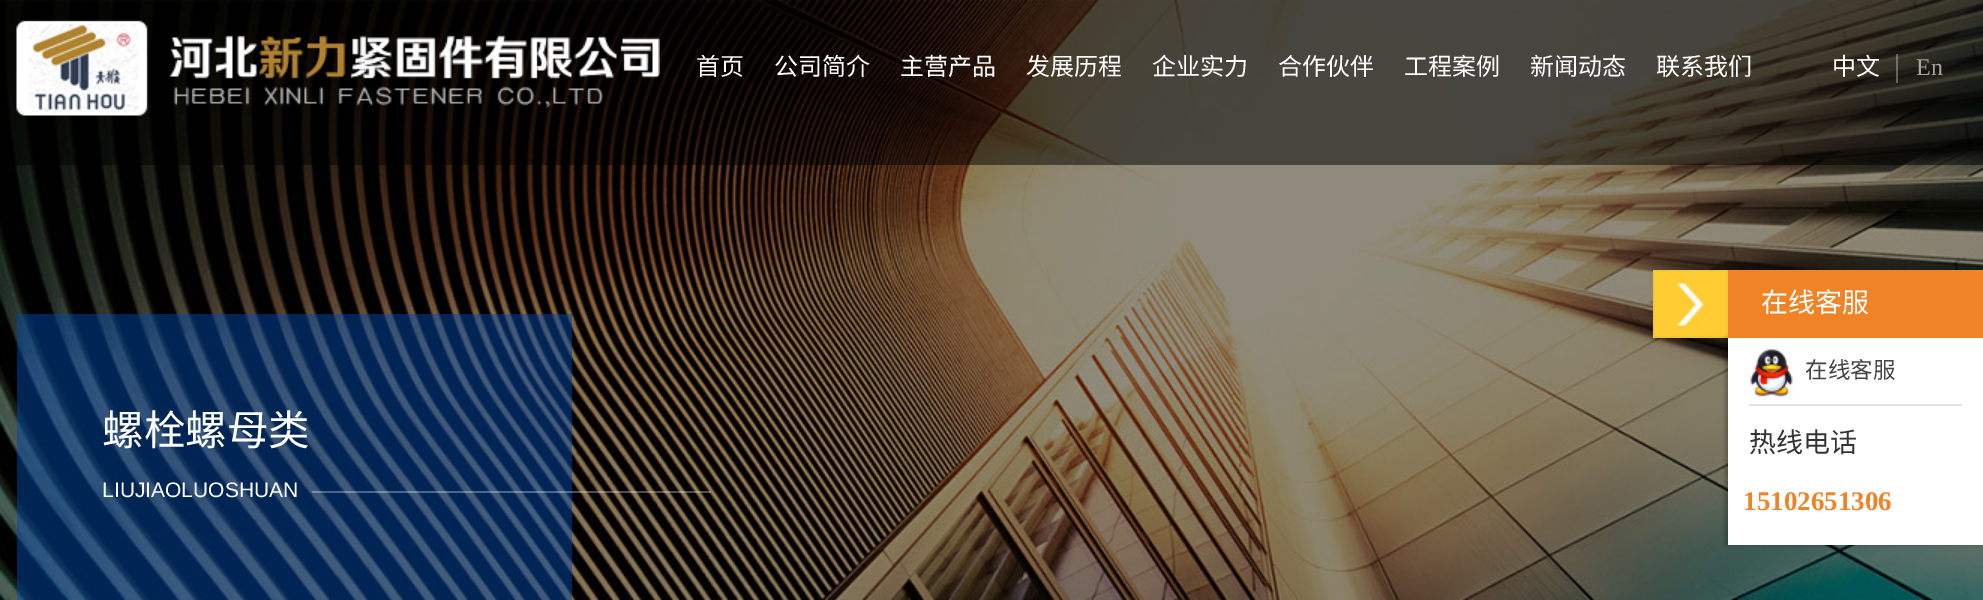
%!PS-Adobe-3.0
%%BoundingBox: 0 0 1983 600
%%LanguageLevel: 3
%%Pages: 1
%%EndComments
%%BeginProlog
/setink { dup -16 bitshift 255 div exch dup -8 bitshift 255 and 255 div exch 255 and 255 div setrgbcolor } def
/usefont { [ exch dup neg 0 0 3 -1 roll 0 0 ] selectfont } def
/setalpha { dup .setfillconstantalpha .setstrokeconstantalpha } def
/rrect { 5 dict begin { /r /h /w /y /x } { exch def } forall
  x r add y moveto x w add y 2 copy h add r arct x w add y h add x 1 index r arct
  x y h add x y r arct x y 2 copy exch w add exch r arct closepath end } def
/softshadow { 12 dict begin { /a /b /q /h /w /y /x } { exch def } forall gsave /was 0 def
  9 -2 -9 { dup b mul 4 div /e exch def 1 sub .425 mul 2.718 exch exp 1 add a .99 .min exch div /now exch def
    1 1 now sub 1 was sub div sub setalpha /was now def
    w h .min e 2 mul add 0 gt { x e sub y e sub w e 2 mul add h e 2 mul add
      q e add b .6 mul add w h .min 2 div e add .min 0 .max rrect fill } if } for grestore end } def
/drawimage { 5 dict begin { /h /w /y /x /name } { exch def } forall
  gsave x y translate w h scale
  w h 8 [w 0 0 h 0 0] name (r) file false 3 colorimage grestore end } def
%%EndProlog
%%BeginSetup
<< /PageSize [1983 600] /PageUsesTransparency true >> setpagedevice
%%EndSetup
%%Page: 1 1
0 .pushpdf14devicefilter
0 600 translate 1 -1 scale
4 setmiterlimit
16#FFFFFF setink
0 0 1983 600 rectfill
(img2.raw) 0 0 1983 600 drawimage
0.5 setalpha
16#000000 setink
0 0 1983 165 rectfill
1 setalpha
(img1.raw) 16 20 644 96 drawimage
/NotoSansCJKSC-Regular 24 usefont
16#FFFFFF setink
[
    [(首页) 696 75]
    [(公司简介) 774 75]
    [(主营产品) 900 75]
    [(发展历程) 1026 75]
    [(企业实力) 1152 75]
    [(合作伙伴) 1278 75]
    [(工程案例) 1404 75]
    [(新闻动态) 1530 75]
    [(联系我们) 1656 75]
    [(中文) 1832 75]
] { aload pop moveto show } forall
0.3 setalpha
1896 54 2 29 rectfill
/LiberationSerif-Regular 24 usefont
1 setalpha
16#A5A5A2 setink
1916 75 moveto (En) show
0.5 setalpha
16#0047A6 setink
17 314 555 286 rectfill
/NotoSansCJKSC-Regular 41.5 usefont
1 setalpha
16#FFFFFF setink
102 445 moveto (螺栓螺母类) show
/LiberationSans-Regular 21 usefont
102 497 moveto (LIUJIAOLUOSHUAN) show
0.3 setalpha
312 491 399 2 rectfill
1 setalpha
(img3.raw) 1653 270 75 68 drawimage
16#000000 setink
1725 338 255 207 0 2 0.25 softshadow
16#F08326 setink
1728 270 255 68 rectfill
/NotoSansCJKSC-Regular 27 usefont
16#FFFFFF setink
1761 312 moveto (在线客服) show
1728 338 255 207 rectfill
16#E3E3E3 setink
1749 404 213 2 rectfill
(img4.raw) 1750 349 44 50 drawimage
/NotoSansCJKSC-Regular 22.5 usefont
16#444444 setink
1805 378 moveto (在线客服) show
/NotoSansCJKSC-Regular 27 usefont
16#333333 setink
1749 452 moveto (热线电话) show
/LiberationSerif-Bold 27 usefont
16#F08326 setink
1743 510 moveto (15102651306) show
.poppdf14devicefilter showpage
%%EOF
